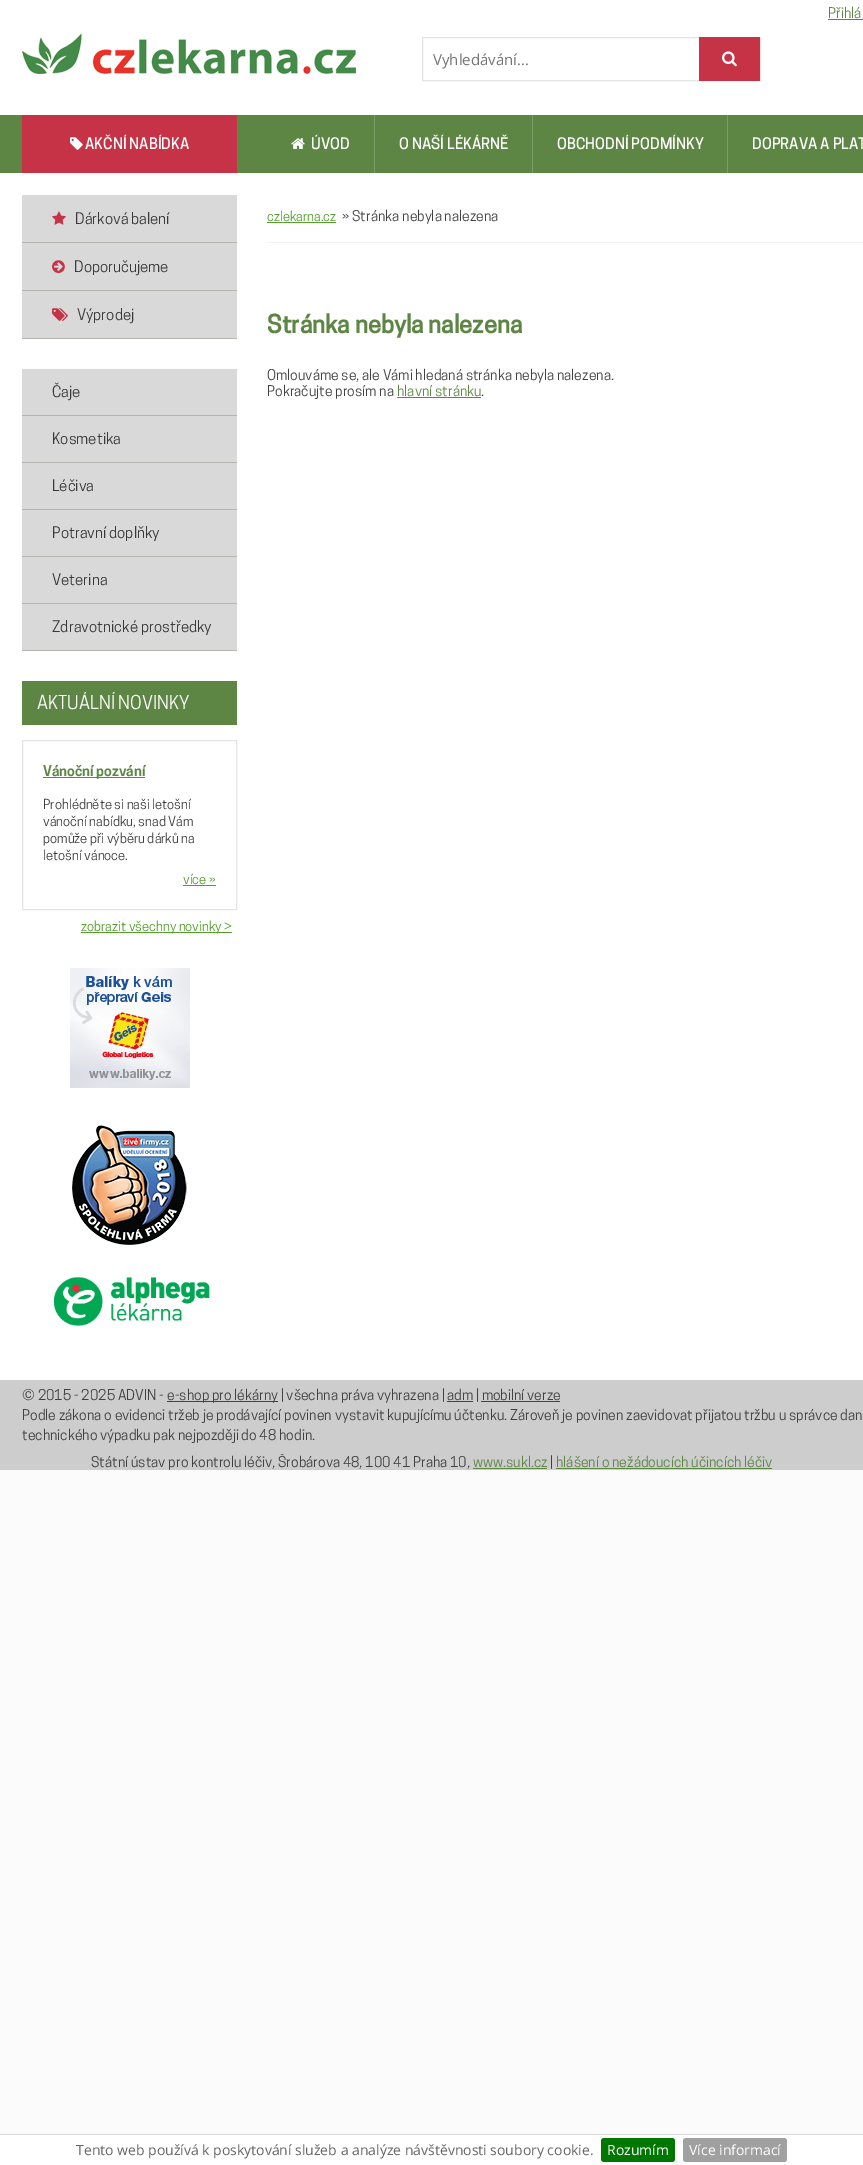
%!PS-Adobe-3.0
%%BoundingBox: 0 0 863 2165
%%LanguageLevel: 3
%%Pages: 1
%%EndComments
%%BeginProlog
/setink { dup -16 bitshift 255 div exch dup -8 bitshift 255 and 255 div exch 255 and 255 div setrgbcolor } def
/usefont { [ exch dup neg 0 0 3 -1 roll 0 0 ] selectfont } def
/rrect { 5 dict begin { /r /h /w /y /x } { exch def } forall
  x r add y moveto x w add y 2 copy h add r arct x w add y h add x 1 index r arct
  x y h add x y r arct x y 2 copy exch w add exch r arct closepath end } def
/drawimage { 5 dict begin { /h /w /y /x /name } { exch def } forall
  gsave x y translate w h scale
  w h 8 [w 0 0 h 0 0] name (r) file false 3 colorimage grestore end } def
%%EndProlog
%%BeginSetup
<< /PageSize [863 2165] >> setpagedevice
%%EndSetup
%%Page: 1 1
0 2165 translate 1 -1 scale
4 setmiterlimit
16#FBFBFB setink
0 0 863 2165 rectfill
16#FFFFFF setink
0 0 863 115 rectfill
/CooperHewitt-Regular 14 usefont
16#5D8645 setink
828 18 moveto (Přihlá) show
828 19 35 1 rectfill
(img1.raw) 22 33 334 41 drawimage
16#E4E4E4 setink
422.5 37.5 338 43 rectstroke
/OpenSans-Regular 15 usefont
16#757575 setink
433 65 moveto (Vyhledávání...) show
16#C73346 setink
699 37 61 44 rectfill
(img2.raw) 722 51 15 16 drawimage
16#5D8645 setink
0 115 863 58 rectfill
16#C73346 setink
22 115 215 58 rectfill
(img3.raw) 70 137 13 13 drawimage
/CooperHewitt-Medium 15 usefont
16#FFFFFF setink
85 149 moveto (AKČNÍ NABÍDKA) show
(img4.raw) 291 138 14 11 drawimage
311 149 moveto (ÚVOD) show
16#7B9D68 setink
374 115 1 58 rectfill
16#FFFFFF setink
399 149 moveto (O NAŠÍ LÉKÁRNĚ) show
16#7B9D68 setink
532 115 1 58 rectfill
16#FFFFFF setink
557 149 moveto (OBCHODNÍ PODMÍNKY) show
16#7B9D68 setink
727 115 1 58 rectfill
16#FFFFFF setink
752 149 moveto (DOPRAVA A PLAT) show
[
    [0 173 863 1207 16#FFFFFF]
    [22 195 215 47 16#D9D9D9]
    [22 242 215 1 16#B1B7AE]
] { aload pop setink rectfill } forall
(img5.raw) 52 211 14 14 drawimage
/CooperHewitt-Regular 15 usefont
16#393939 setink
75 224 moveto (Dárková balení) show
16#D9D9D9 setink
22 243 215 47 rectfill
16#B1B7AE setink
22 290 215 1 rectfill
(img6.raw) 52 260 13 14 drawimage
16#393939 setink
74 272 moveto (Doporučujeme) show
16#D9D9D9 setink
22 291 215 47 rectfill
16#B1B7AE setink
22 338 215 1 rectfill
(img7.raw) 52 308 16 13 drawimage
16#393939 setink
77 320 moveto (Výprodej) show
16#D9D9D9 setink
22 369 215 46 rectfill
16#B1B7AE setink
22 415 215 1 rectfill
16#393939 setink
52 397 moveto (Čaje) show
16#D9D9D9 setink
22 416 215 46 rectfill
16#B1B7AE setink
22 462 215 1 rectfill
16#393939 setink
52 444 moveto (Kosmetika) show
16#D9D9D9 setink
22 463 215 46 rectfill
16#B1B7AE setink
22 509 215 1 rectfill
16#393939 setink
52 491 moveto (Léčiva) show
16#D9D9D9 setink
22 510 215 46 rectfill
16#B1B7AE setink
22 556 215 1 rectfill
16#393939 setink
52 538 moveto (Potravní doplňky) show
16#D9D9D9 setink
22 557 215 46 rectfill
16#B1B7AE setink
22 603 215 1 rectfill
16#393939 setink
52 585 moveto (Veterina) show
16#D9D9D9 setink
22 604 215 46 rectfill
16#B1B7AE setink
22 650 215 1 rectfill
16#393939 setink
52 632 moveto (Zdravotnické prostředky) show
16#5D8645 setink
22 681 215 44 rectfill
/CooperHewitt-Regular 18 usefont
16#FFFFFF setink
37 709 moveto (AKTUÁLNÍ NOVINKY) show
16#E4E4E4 setink
22.5 740.5 214 169 rectstroke
16#5D8645 setink
43 777 102 1 rectfill
/CooperHewitt-SemiBold 14 usefont
43 776 moveto (Vánoční pozvání) show
/CooperHewitt-Regular 13 usefont
16#404040 setink
[
    [(Prohlédněte si naši letošní) 43 809]
    [(vánoční nabídku, snad Vám) 43 826]
    [(pomůže při výběru dárků na) 43 843]
    [(letošní vánoce.) 43 860]
] { aload pop moveto show } forall
16#53A02C setink
183 884 moveto (více ») show
183 885 33 1 rectfill
81 932 151 1 rectfill
81 931 moveto (zobrazit všechny novinky >) show
(img8.raw) 70 968 120 120 drawimage
(img9.raw) 72 1125 115 120 drawimage
(img10.raw) 52 1275 158 51 drawimage
16#F2F4F6 setink
267 242 596 1 rectfill
16#53A02C setink
267 221 moveto (czlekarna.cz) show
267 222 69 1 rectfill
/CooperHewitt-Regular 14 usefont
16#404040 setink
342 221 moveto (» Stránka nebyla nalezena) show
/CooperHewitt-Bold 23.75 usefont
16#5D8645 setink
267 333 moveto (Stránka nebyla nalezena) show
/CooperHewitt-Regular 14 usefont
16#404040 setink
267 380 moveto (Omlouváme se, ale Vámi hledaná stránka nebyla nalezena.) show
267 396 moveto (Pokračujte prosím na) show
16#5D8645 setink
397 396 moveto (hlavní stránku) show
397 397 84 1 rectfill
16#404040 setink
481 396 moveto (.) show
16#CDCDCD setink
0 1454 863 16 rectfill
16#404040 setink
91 1467 moveto (Státní ústav pro kontrolu léčiv, Šrobárova 48, 100 41 Praha 10,) show
16#CDCDCD setink
0 1380 863 74 rectfill
16#404040 setink
22 1400 moveto (© 2015 - 2025 ADVIN -) show
16#444444 setink
167 1401 111 1 rectfill
16#404040 setink
167 1400 moveto (e-shop pro lékárny | všechna práva vyhrazena | adm | mobilní verze) show
16#444444 setink
447 1401 26 1 rectfill
481 1401 79 1 rectfill
16#404040 setink
22 1420 moveto (Podle zákona o evidenci tržeb je prodávající povinen vystavit kupujícímu účtenku. Zároveň je povinen zaevidovat přijatou tržbu u správce dan) show
22 1440 moveto (technického výpadku pak nejpozději do 48 hodin.) show
16#5D8645 setink
473 1467 moveto (www.sukl.cz) show
473 1468 74 1 rectfill
16#404040 setink
550 1467 moveto (|) show
16#5D8645 setink
556 1467 moveto (hlášení o nežádoucích účincích léčiv) show
[
    [556 1468 216 1 16#5D8645]
    [0 2135 863 30 16#FFFFFF]
    [0 2134 863 1 16#D9D9D9]
] { aload pop setink rectfill } forall
/OpenSans-Regular 14 usefont
16#666666 setink
76 2155 moveto (Tento web používá k poskytování služeb a analýze návštěvnosti soubory cookie.) show
16#007700 setink
601 2138 74 24 3 rrect fill
16#FFFFFF setink
607 2155 moveto (Rozumím) show
16#A0A0A0 setink
683 2138 104 24 3 rrect fill
16#FFFFFF setink
689 2155 moveto (Více informací) show
showpage
%%EOF
